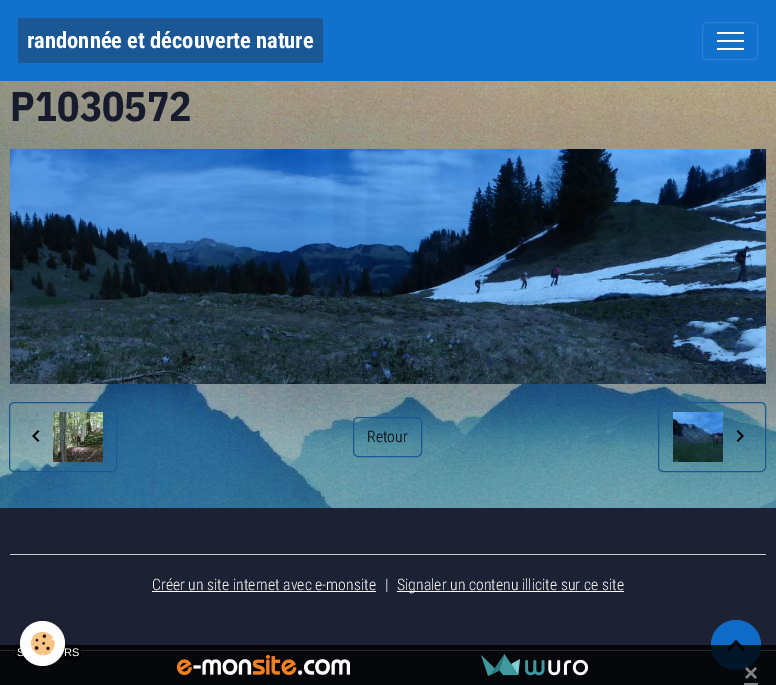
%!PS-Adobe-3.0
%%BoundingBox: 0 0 776 685
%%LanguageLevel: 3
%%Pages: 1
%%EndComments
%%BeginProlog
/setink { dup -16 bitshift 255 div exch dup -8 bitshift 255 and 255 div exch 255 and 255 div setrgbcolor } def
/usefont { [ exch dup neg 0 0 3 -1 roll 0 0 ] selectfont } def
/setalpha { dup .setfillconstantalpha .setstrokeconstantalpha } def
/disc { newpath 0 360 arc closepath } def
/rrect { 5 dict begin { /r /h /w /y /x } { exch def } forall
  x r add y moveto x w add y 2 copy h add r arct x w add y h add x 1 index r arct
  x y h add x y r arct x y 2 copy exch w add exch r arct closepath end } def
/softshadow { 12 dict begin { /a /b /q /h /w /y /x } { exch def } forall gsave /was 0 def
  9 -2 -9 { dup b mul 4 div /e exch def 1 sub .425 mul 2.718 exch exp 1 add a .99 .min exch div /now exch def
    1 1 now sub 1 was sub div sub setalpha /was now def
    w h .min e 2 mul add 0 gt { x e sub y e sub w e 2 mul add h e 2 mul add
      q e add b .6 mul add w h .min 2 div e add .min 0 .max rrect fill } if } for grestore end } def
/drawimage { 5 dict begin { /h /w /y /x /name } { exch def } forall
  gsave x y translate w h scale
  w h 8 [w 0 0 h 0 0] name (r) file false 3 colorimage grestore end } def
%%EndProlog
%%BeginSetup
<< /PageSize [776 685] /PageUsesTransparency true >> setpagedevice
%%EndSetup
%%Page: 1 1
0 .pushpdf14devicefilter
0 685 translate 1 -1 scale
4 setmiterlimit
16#FFFFFF setink
0 0 776 685 rectfill
(img1.raw) 0 81 776 427 drawimage
16#1171CD setink
0 0 776 81 rectfill
16#195894 setink
18 18 305 45 rectfill
/RobotoCondensed-Bold 22.5 usefont
16#FFFFFF setink
27 48 moveto (randonnée et découverte nature) show
16#297FD2 setink
702.5 22.5 55 37 4.5 rrect stroke
16#FFFFFF setink
717 32 27 2 1 rrect fill
717 40 27 2 1 rrect fill
717 48 27 2 1 rrect fill
/IBMPlexSansCondensed-Bold 41.5 usefont
16#161C2D setink
10 121 moveto (P1030572) show
(img2.raw) 10 149 756 235 drawimage
16#195894 setink
9.5 402.5 107 69 4.5 rrect stroke
(img3.raw) 32 430 8 12 drawimage
(img4.raw) 53 412 50 50 drawimage
353.5 417.5 68 39 4.5 rrect stroke
/RobotoCondensed-Light 15.75 usefont
16#000000 setink
367 442 moveto (Retour) show
16#195894 setink
658.5 402.5 107 69 4.5 rrect stroke
(img5.raw) 673 412 50 50 drawimage
(img6.raw) 736 430 8 12 drawimage
16#1D2134 setink
0 508 776 177 rectfill
16#CCCCCC setink
10 554 756 1 rectfill
16#FFFFFF setink
152 590 moveto (Créer un site internet avec e-monsite) show
152 591 224 1 rectfill
16#D2D3D6 setink
385 590 moveto (|) show
16#FFFFFF setink
397 591 227 1 rectfill
397 590 moveto (Signaler un contenu illicite sur ce site) show
16#CCCCCC setink
0 650 776 1 rectfill
16#0F6CC6 setink
736 645 25 disc fill
16#000000 setink
736 640 moveto 745 649 lineto 743 651 lineto 736 644 lineto 729 651 lineto 727 649 lineto closepath fill
0.8 setalpha
0 645 776 40 rectfill
1 setalpha
15 645 66 15 rectfill
20 624 45 45 22.5 5 0.24 softshadow
16#FFFFFF setink
42.5 643.5 22.5 disc fill
(img7.raw) 30 631 25 25 drawimage
/LiberationSans-Regular 11 usefont
17 656 moveto (S) show
64 656 moveto (RS) show
(img8.raw) 177 655 173 20 drawimage
(img9.raw) 481 654 107 22 drawimage
/LiberationSans-Bold 24 usefont
16#828385 setink
744 681 moveto (×) show
744 683 14 2 rectfill
.poppdf14devicefilter showpage
%%EOF
